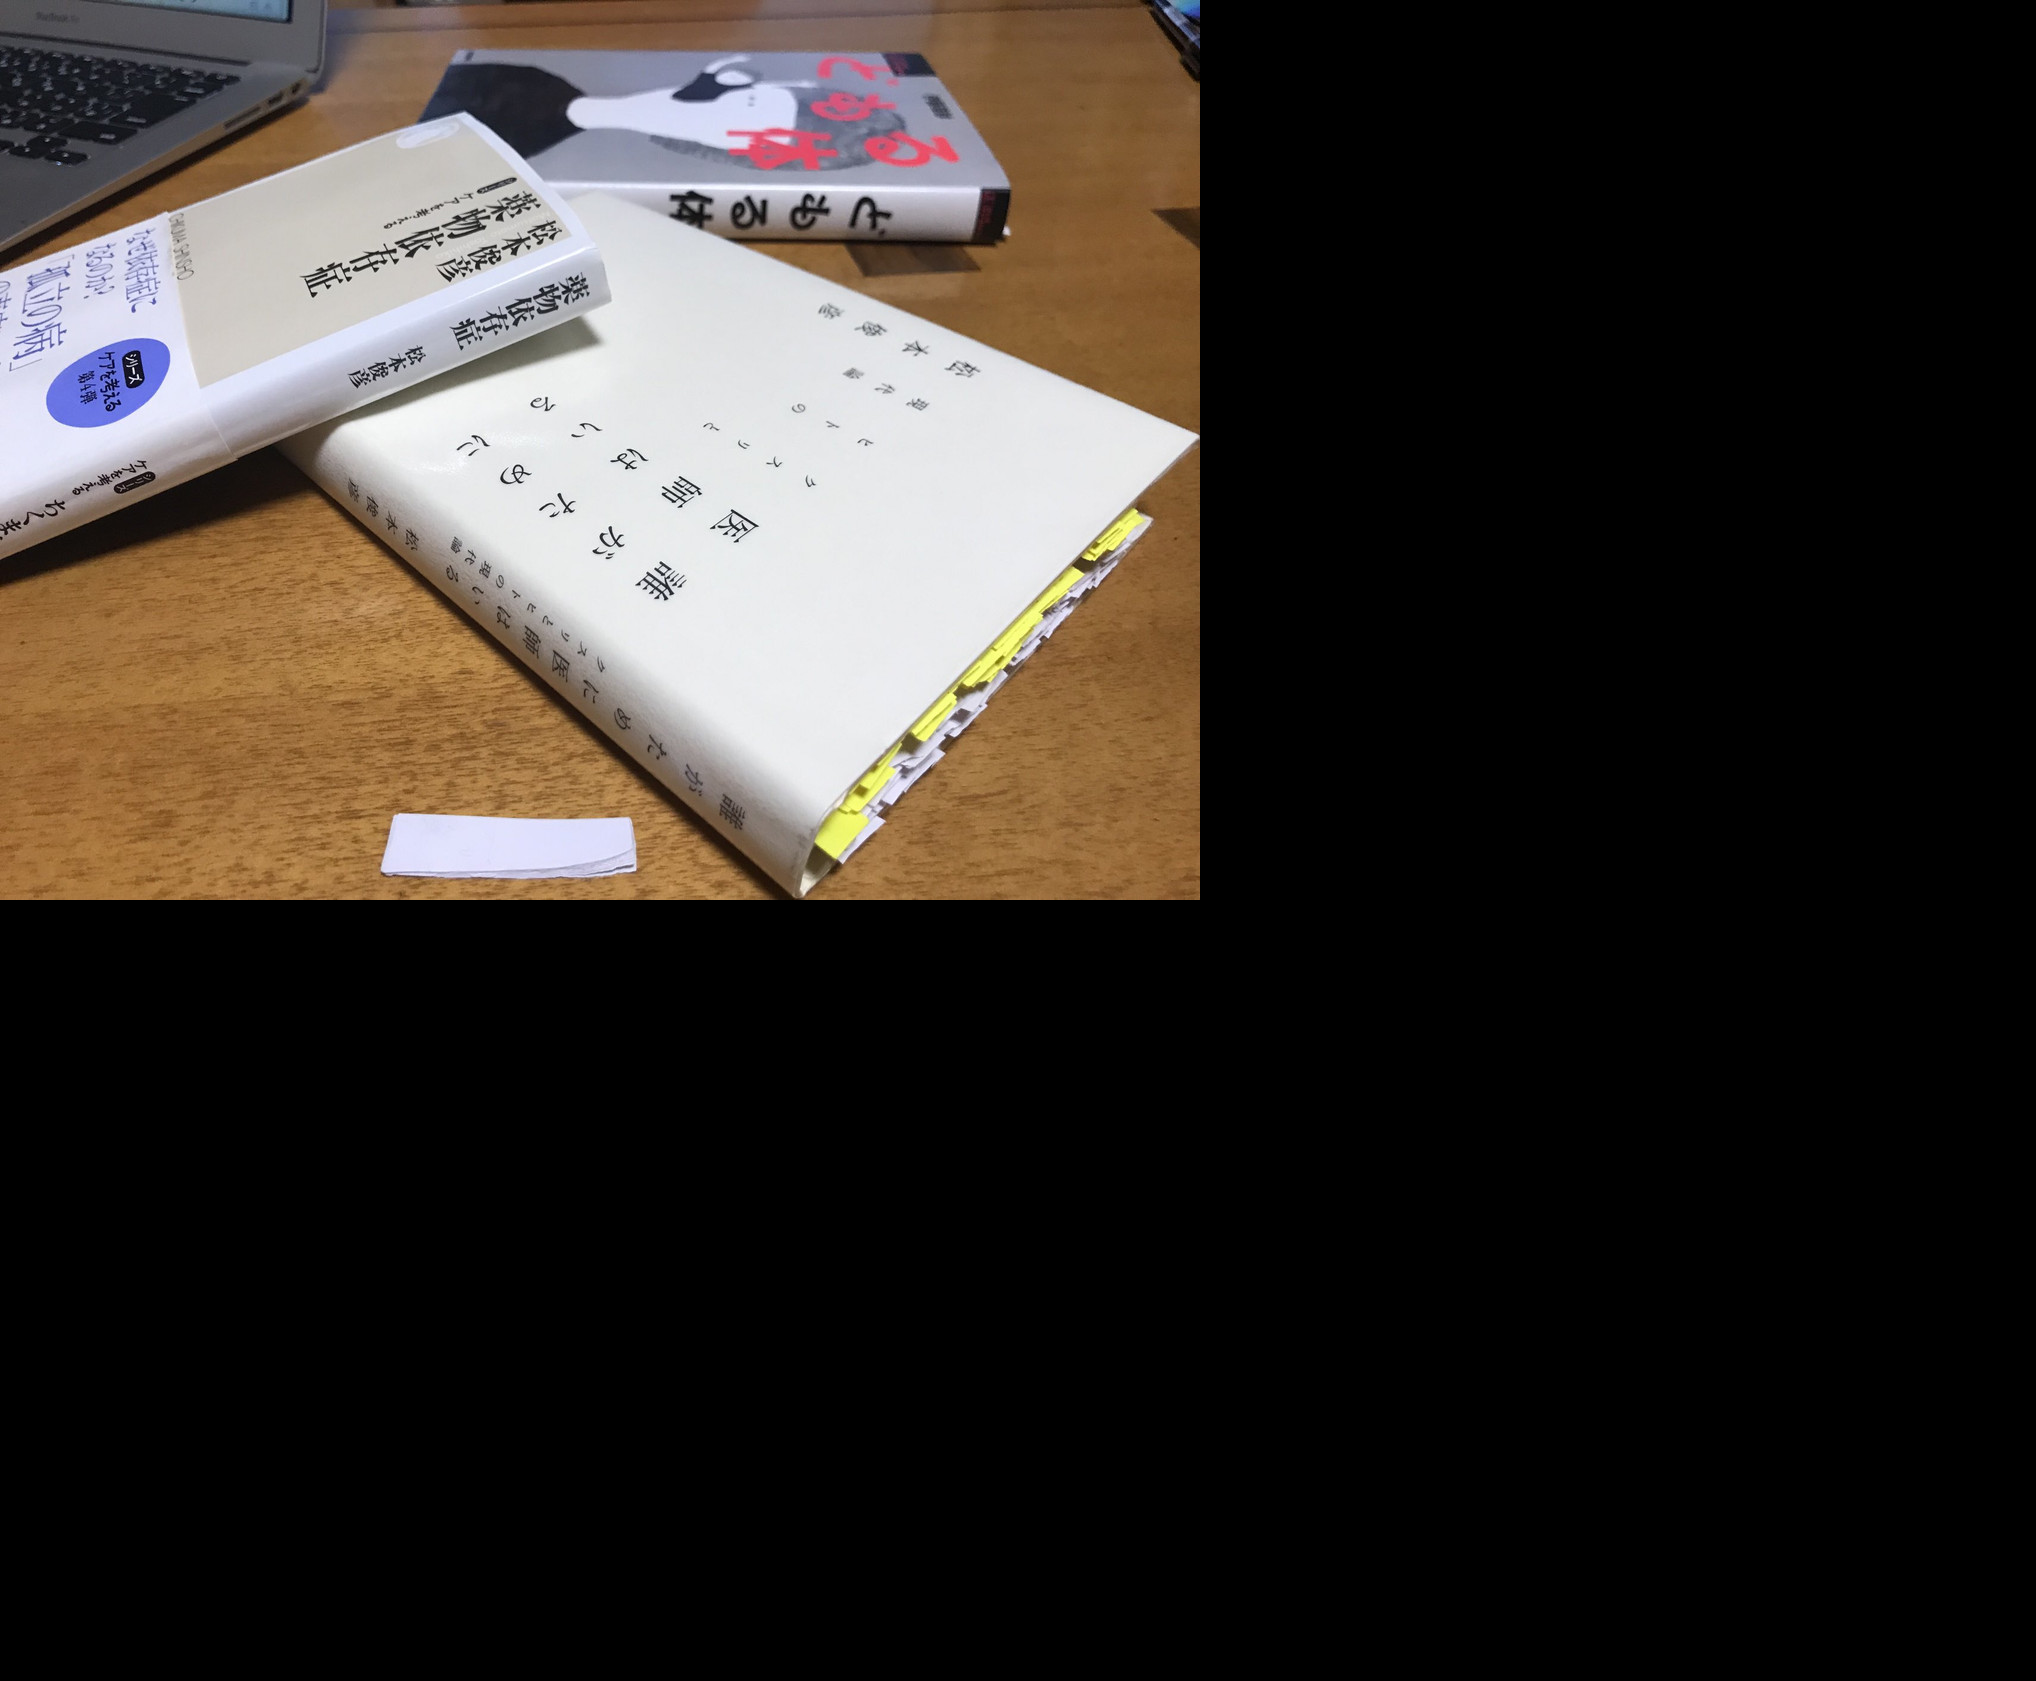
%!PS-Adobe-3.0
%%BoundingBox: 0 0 2036 1681
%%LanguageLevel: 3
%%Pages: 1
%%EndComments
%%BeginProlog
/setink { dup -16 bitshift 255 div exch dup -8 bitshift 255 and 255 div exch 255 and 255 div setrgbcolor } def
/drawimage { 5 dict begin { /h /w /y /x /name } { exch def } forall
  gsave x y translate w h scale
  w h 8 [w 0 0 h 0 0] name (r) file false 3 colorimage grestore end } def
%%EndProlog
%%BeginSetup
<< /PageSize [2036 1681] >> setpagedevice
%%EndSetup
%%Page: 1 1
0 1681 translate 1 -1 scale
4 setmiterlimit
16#000000 setink
0 0 2036 1681 rectfill
(img1.raw) 0 0 1200 900 drawimage
showpage
%%EOF
